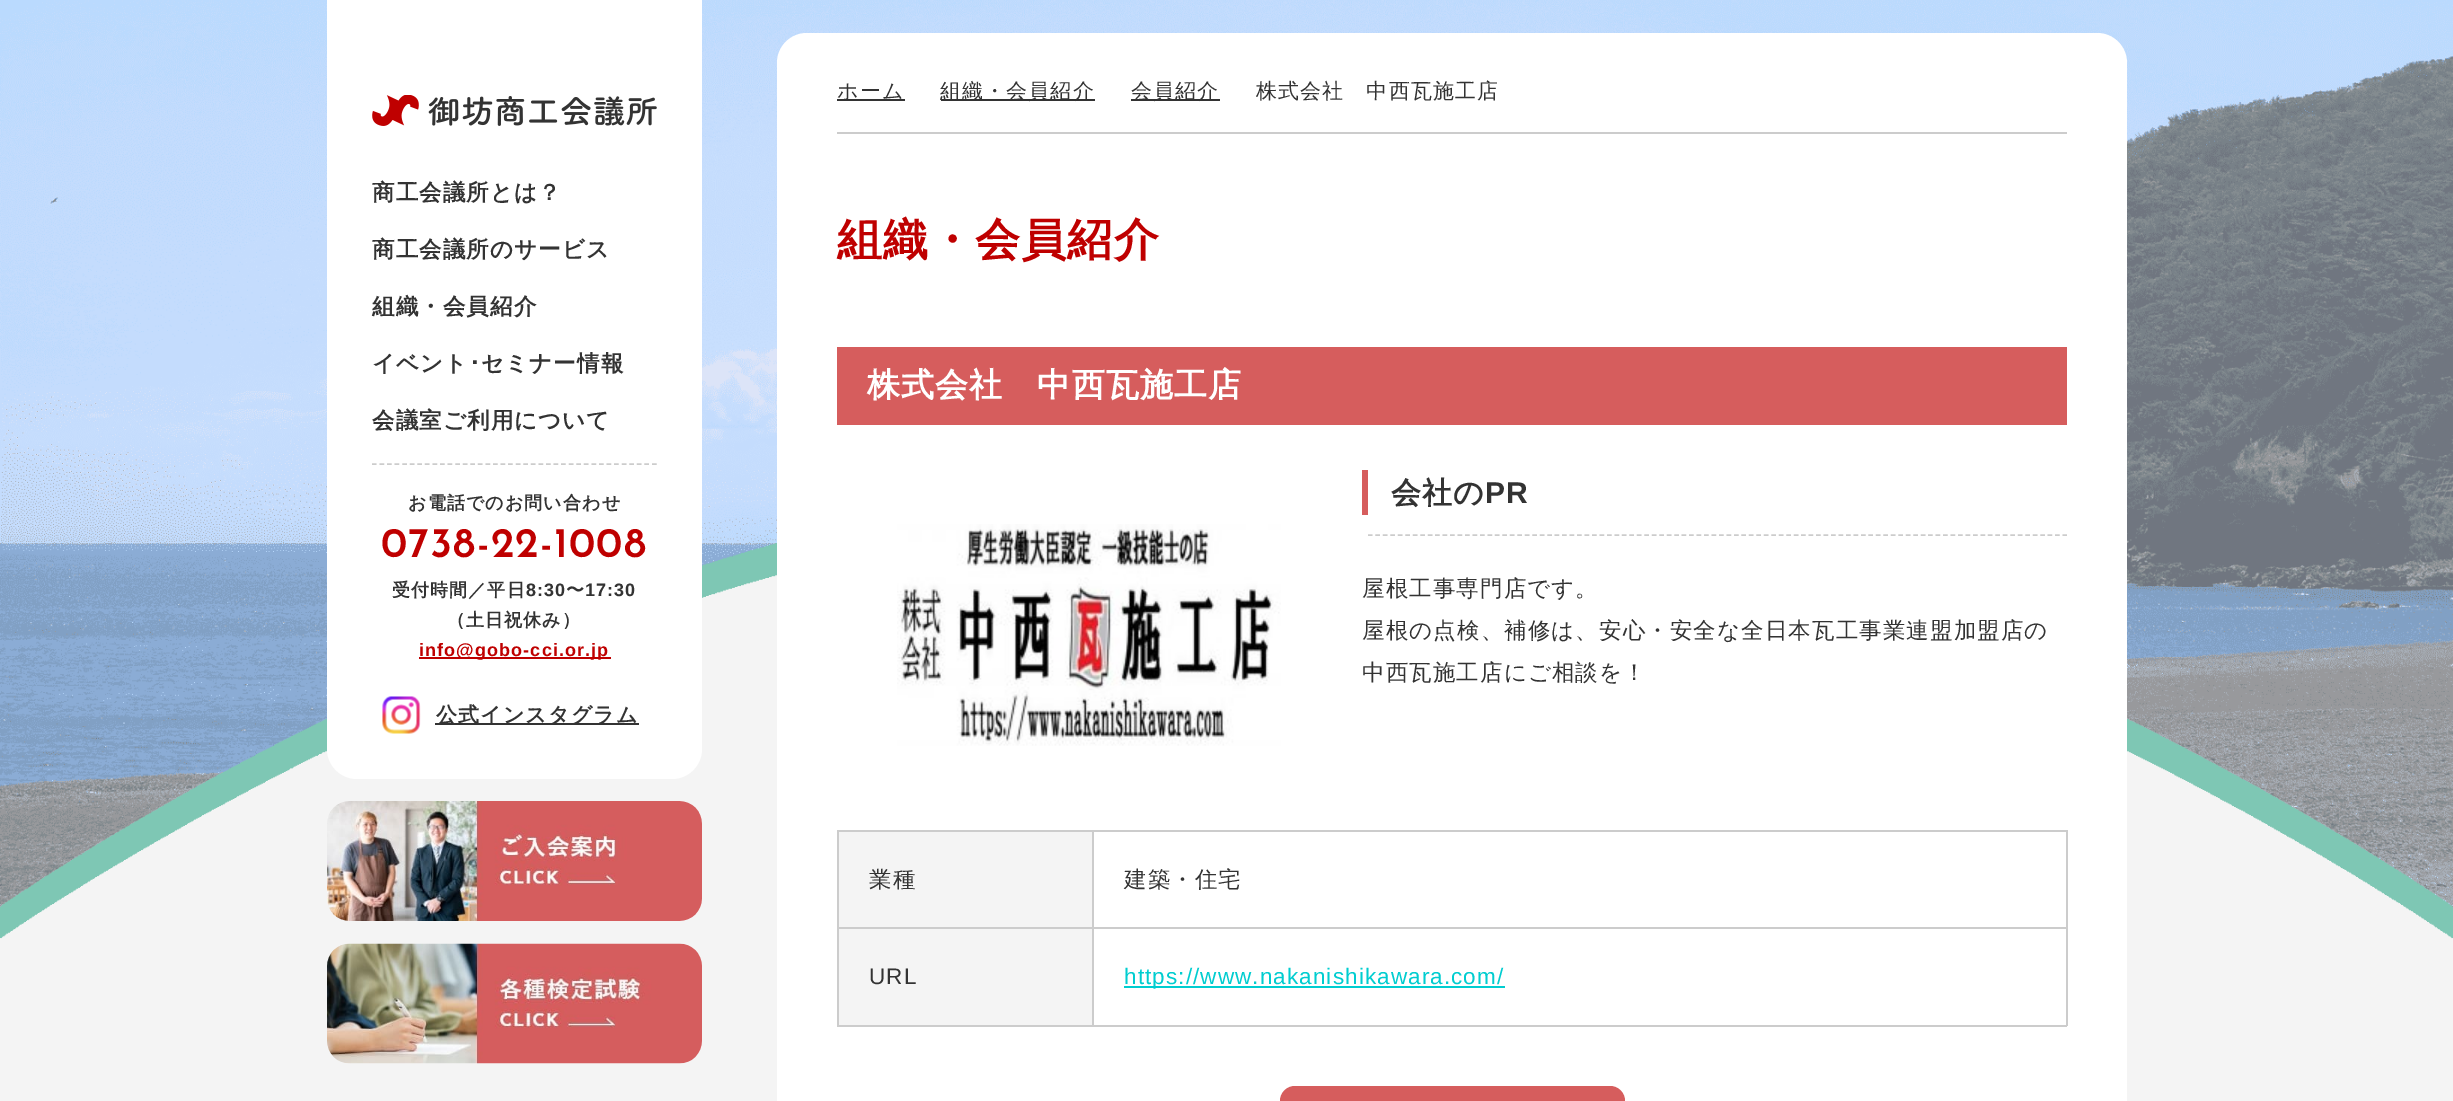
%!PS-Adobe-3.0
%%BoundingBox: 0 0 2453 1101
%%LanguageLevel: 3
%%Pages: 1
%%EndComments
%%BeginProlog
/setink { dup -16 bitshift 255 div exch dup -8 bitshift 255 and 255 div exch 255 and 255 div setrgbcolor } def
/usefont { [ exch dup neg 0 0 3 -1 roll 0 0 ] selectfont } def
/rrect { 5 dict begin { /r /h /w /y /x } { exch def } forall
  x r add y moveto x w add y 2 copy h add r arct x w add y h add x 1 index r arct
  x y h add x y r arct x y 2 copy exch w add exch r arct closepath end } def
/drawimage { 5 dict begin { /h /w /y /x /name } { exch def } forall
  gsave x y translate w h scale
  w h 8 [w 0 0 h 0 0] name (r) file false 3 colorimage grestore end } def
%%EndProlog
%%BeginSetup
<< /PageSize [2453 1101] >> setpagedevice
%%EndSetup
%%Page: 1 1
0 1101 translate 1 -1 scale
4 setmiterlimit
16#F4F4F4 setink
0 0 2453 1101 rectfill
(img1.raw) 0 0 2453 939 drawimage
16#FFFFFF setink
327 0 moveto 702 0 lineto 702 749 lineto 702 765.5 688.5 779 672 779 curveto 357 779 lineto 340.5 779 327 765.5 327 749 curveto closepath fill
(img2.raw) 372 95 285 31 drawimage
/WenQuanYiZenHei-Bold 22.5 usefont
16#333333 setink
372 200 moveto 1.1 0 (商工会議所とは？) ashow
372 257 moveto 1.1 0 (商工会議所のサービス) ashow
372 314 moveto 1.1 0 (組織・会員紹介) ashow
372 371 moveto 1.1 0 (イベント) ashow
/IPAPGothic-Bold 22.5 usefont
469 371 moveto 1.1 0 (･) ashow
/WenQuanYiZenHei-Bold 22.5 usefont
481 371 moveto 1.1 0 (セミナー情報) ashow
372 428 moveto 1.1 0 (会議室ご利用について) ashow
16#CCCCCC setink
1.5 setlinewidth
[4.5 3.07] 0 setdash
372 464 moveto 657 464 lineto stroke
/WenQuanYiZenHei-Bold 18 usefont
16#333333 setink
408 509 moveto 1.1 0 (お電話でのお問い合わせ) ashow
/JosefinSans-Thin 42 usefont
16#BF0000 setink
381 557 moveto 1.1 0 (0738-22-1008) ashow
/WenQuanYiZenHei-Bold 18 usefont
16#333333 setink
392 596 moveto 1.1 0 (受付時間／平日) ashow
/LiberationSans-Bold 18 usefont
526 596 moveto 1.1 0 (8:30) ashow
/WenQuanYiZenHei-Bold 18 usefont
566 596 moveto 1.1 0 (〜) ashow
/LiberationSans-Bold 18 usefont
585 596 moveto 1.1 0 (17:30) ashow
/WenQuanYiZenHei-Bold 18 usefont
447 626 moveto 1.1 0 (（土日祝休み）) ashow
16#BF0000 setink
419 657 192 2 rectfill
/LiberationSans-Bold 18 usefont
419 656 moveto 1.1 0 (info@gobo-cci.or.jp) ashow
(img3.raw) 382 696 39 38 drawimage
16#333333 setink
435 723 204 2 rectfill
/WenQuanYiZenHei-Bold 21 usefont
436 722 moveto 1.1 0 (公式インスタグラム) ashow
(img4.raw) 327 801 375 120 drawimage
(img5.raw) 327 943 375 121 drawimage
16#FFFFFF setink
777 33 1350 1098 30 rrect fill
16#CCCCCC setink
837 132 1230 2 rectfill
16#333333 setink
837 99 68 2 rectfill
/WenQuanYiZenHei-Medium 21 usefont
837 98 moveto 1.1 0 (ホーム) ashow
941 99 154 2 rectfill
940 98 moveto 1.1 0 (組織・会員紹介) ashow
1131 99 89 2 rectfill
1131 98 moveto 1.1 0 (会員紹介) ashow
1256 98 moveto 1.1 0 (株式会社　中西瓦施工店) ashow
/WenQuanYiZenHei-Bold 45 usefont
16#BF0000 setink
837 255 moveto 1.1 0 (組織・会員紹介) ashow
16#D65D5D setink
837 347 1230 78 rectfill
/WenQuanYiZenHei-Bold 33 usefont
16#FFFFFF setink
867 396 moveto 1.1 0 (株式会社　中西瓦施工店) ashow
(img6.raw) 897 524 384 222 drawimage
16#D65D5D setink
1362 470 6 45 rectfill
/WenQuanYiZenHei-Bold 30 usefont
16#333333 setink
1391 503 moveto 1.1 0 (会社の) ashow
/LiberationSans-Bold 30 usefont
1485 503 moveto 1.1 0 (PR) ashow
16#CCCCCC setink
[4.5 2.97] 0 setdash
1368 535 moveto 2067 535 lineto stroke
/WenQuanYiZenHei-Medium 22.5 usefont
16#333333 setink
1362 596 moveto 1.1 0 (屋根工事専門店です。) ashow
1362 638 moveto 1.1 0 (屋根の点検、補修は、安心・安全な全日本瓦工事業連盟加盟店の) ashow
1362 680 moveto 1.1 0 (中西瓦施工店にご相談を！) ashow
[
    [837 830 1230 2 16#CCCCCC]
    [2066 830 2 196 16#CCCCCC]
    [837 1025 1230 2 16#CCCCCC]
    [837 830 2 196 16#CCCCCC]
    [839 832 253 95 16#F4F4F4]
] { aload pop setink rectfill } forall
16#333333 setink
869 887 moveto 1.1 0 (業種) ashow
1124 887 moveto 1.1 0 (建築・住宅) ashow
16#CCCCCC setink
837 927 1230 2 rectfill
16#F4F4F4 setink
839 929 253 96 rectfill
/LiberationSans-Regular 22.5 usefont
16#333333 setink
869 984 moveto 1.1 0 (URL) ashow
16#CCCCCC setink
1092 830 2 196 rectfill
16#00CDD0 setink
1124 986 381 2 rectfill
1124 984 moveto 1.1 0 (https://www.nakanishikawara.com/) ashow
16#D65D5D setink
1280 1086 345 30 15 rrect fill
showpage
%%EOF
